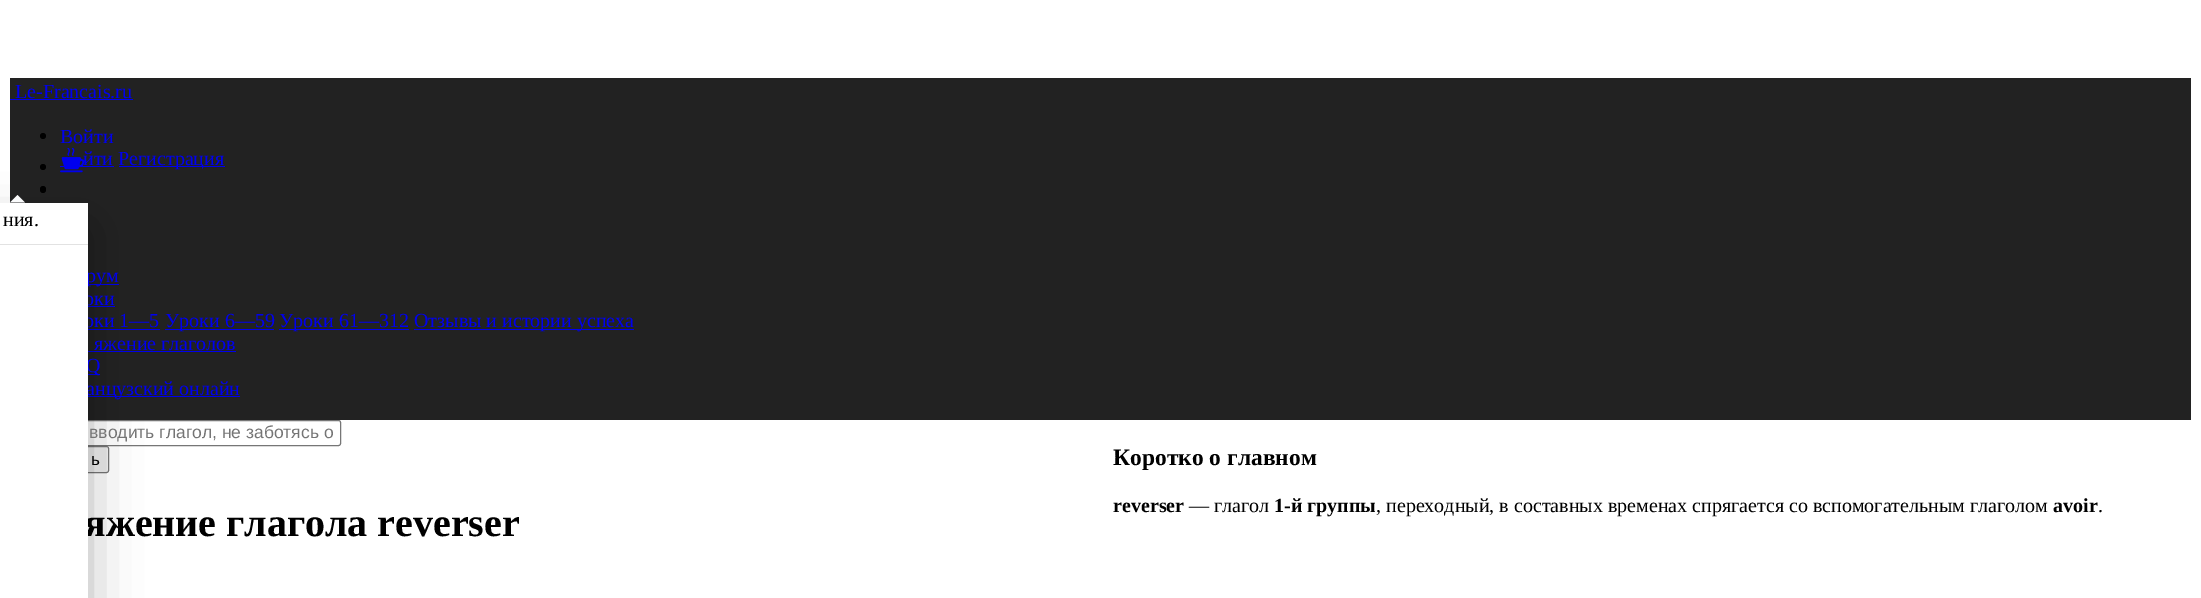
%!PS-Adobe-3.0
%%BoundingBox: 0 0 2201 598
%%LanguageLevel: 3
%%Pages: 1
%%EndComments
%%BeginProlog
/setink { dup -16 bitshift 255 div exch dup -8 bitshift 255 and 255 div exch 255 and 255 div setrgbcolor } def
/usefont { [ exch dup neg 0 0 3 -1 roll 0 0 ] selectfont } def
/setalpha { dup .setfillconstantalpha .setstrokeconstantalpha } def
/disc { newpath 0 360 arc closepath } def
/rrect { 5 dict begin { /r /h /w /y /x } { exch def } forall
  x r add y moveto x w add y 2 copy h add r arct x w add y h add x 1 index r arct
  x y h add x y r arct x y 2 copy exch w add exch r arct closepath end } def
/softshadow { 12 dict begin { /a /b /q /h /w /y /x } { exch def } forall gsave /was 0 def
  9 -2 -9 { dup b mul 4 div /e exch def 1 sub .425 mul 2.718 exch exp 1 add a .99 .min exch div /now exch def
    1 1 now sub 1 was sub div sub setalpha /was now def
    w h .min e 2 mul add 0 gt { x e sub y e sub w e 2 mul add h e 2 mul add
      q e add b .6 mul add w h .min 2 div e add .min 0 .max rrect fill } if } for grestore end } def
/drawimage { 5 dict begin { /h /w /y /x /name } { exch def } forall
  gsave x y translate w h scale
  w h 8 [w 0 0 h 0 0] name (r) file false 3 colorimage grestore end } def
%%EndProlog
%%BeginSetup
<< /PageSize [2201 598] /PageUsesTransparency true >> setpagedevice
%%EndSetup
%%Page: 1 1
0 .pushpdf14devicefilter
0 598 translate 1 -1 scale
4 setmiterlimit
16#FFFFFF setink
0 0 2201 598 rectfill
16#222222 setink
10 78 2181 342 rectfill
/LiberationSerif-Regular 20 usefont
16#0000EE setink
15 98 moveto (Le-Francais.ru) show
10 99 123 1 rectfill
16#000000 setink
43 136 3 disc fill
16#0000EE setink
60 143 moveto (Войти) show
(img1.raw) 60 148 25 25 drawimage
83 165 moveto (йти) show
60 166 54 1 rectfill
119 166 106 1 rectfill
118 165 moveto (Регистрация) show
16#000000 setink
43 167 3 disc fill
40 186 6 7 3 rrect fill
[
    [88 284 31 1 16#0000EE]
    [88 306 27 1 16#0000EE]
    [88 329 72 1 16#0000EE]
    [88 351 148 1 16#0000EE]
    [88 374 12 1 16#0000EE]
    [88 396 152 1 16#0000EE]
] { aload pop setink rectfill } forall
16#767676 setink
10.5 420.5 330 25 2 rrect stroke
16#EFEFEF setink
10.5 446.5 98 26 2 rrect gsave fill grestore
16#767676 setink
stroke
16#000000 setink
-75 228 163 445 0 25 0.3 softshadow
16#0000EE setink
[
    [(рум) 86 282]
    [(оки) 84 305]
    [(оки 1—5) 84 327]
    [(Q) 86 372]
    [(анцузский онлайн) 86 395]
] { aload pop moveto show } forall
/LiberationSerif-Bold 40 usefont
16#000000 setink
84 536 moveto (яжение глагола reverser) show
16#FFFFFF setink
0 203 88 395 rectfill
16#FAFBFC setink
25 202.5 moveto 10 202.5 lineto 17.5 195 lineto closepath fill
16#E2E2E2 setink
0 244 88 1 rectfill
/LiberationSerif-Regular 20 usefont
16#000000 setink
3 226 moveto (ния.) show
16#0000EE setink
165 329 109 1 rectfill
165 327 moveto (Уроки 6—59) show
279 329 130 1 rectfill
279 327 moveto (Уроки 61—312) show
414 329 220 1 rectfill
414 327 moveto (Отзывы и истории успеха) show
94 350 moveto (яжение глаголов) show
/LiberationSans-Regular 17.5 usefont
16#757575 setink
89 438 moveto (вводить глагол, не заботясь о) show
/LiberationSans-Regular 17 usefont
16#000000 setink
91 465 moveto (ь) show
/LiberationSerif-Bold 23.5 usefont
1113 465 moveto (Коротко о главном) show
/LiberationSerif-Bold 20 usefont
1113 512 moveto (reverser) show
/LiberationSerif-Regular 20 usefont
1189 512 moveto (— глагол) show
/LiberationSerif-Bold 20 usefont
1274 512 moveto (1-й группы) show
/LiberationSerif-Regular 20 usefont
1376 512 moveto (, переходный, в составных временах спрягается со вспомогательным глаголом) show
/LiberationSerif-Bold 20 usefont
2053 512 moveto (avoir) show
/LiberationSerif-Regular 20 usefont
2098 512 moveto (.) show
.poppdf14devicefilter showpage
%%EOF
